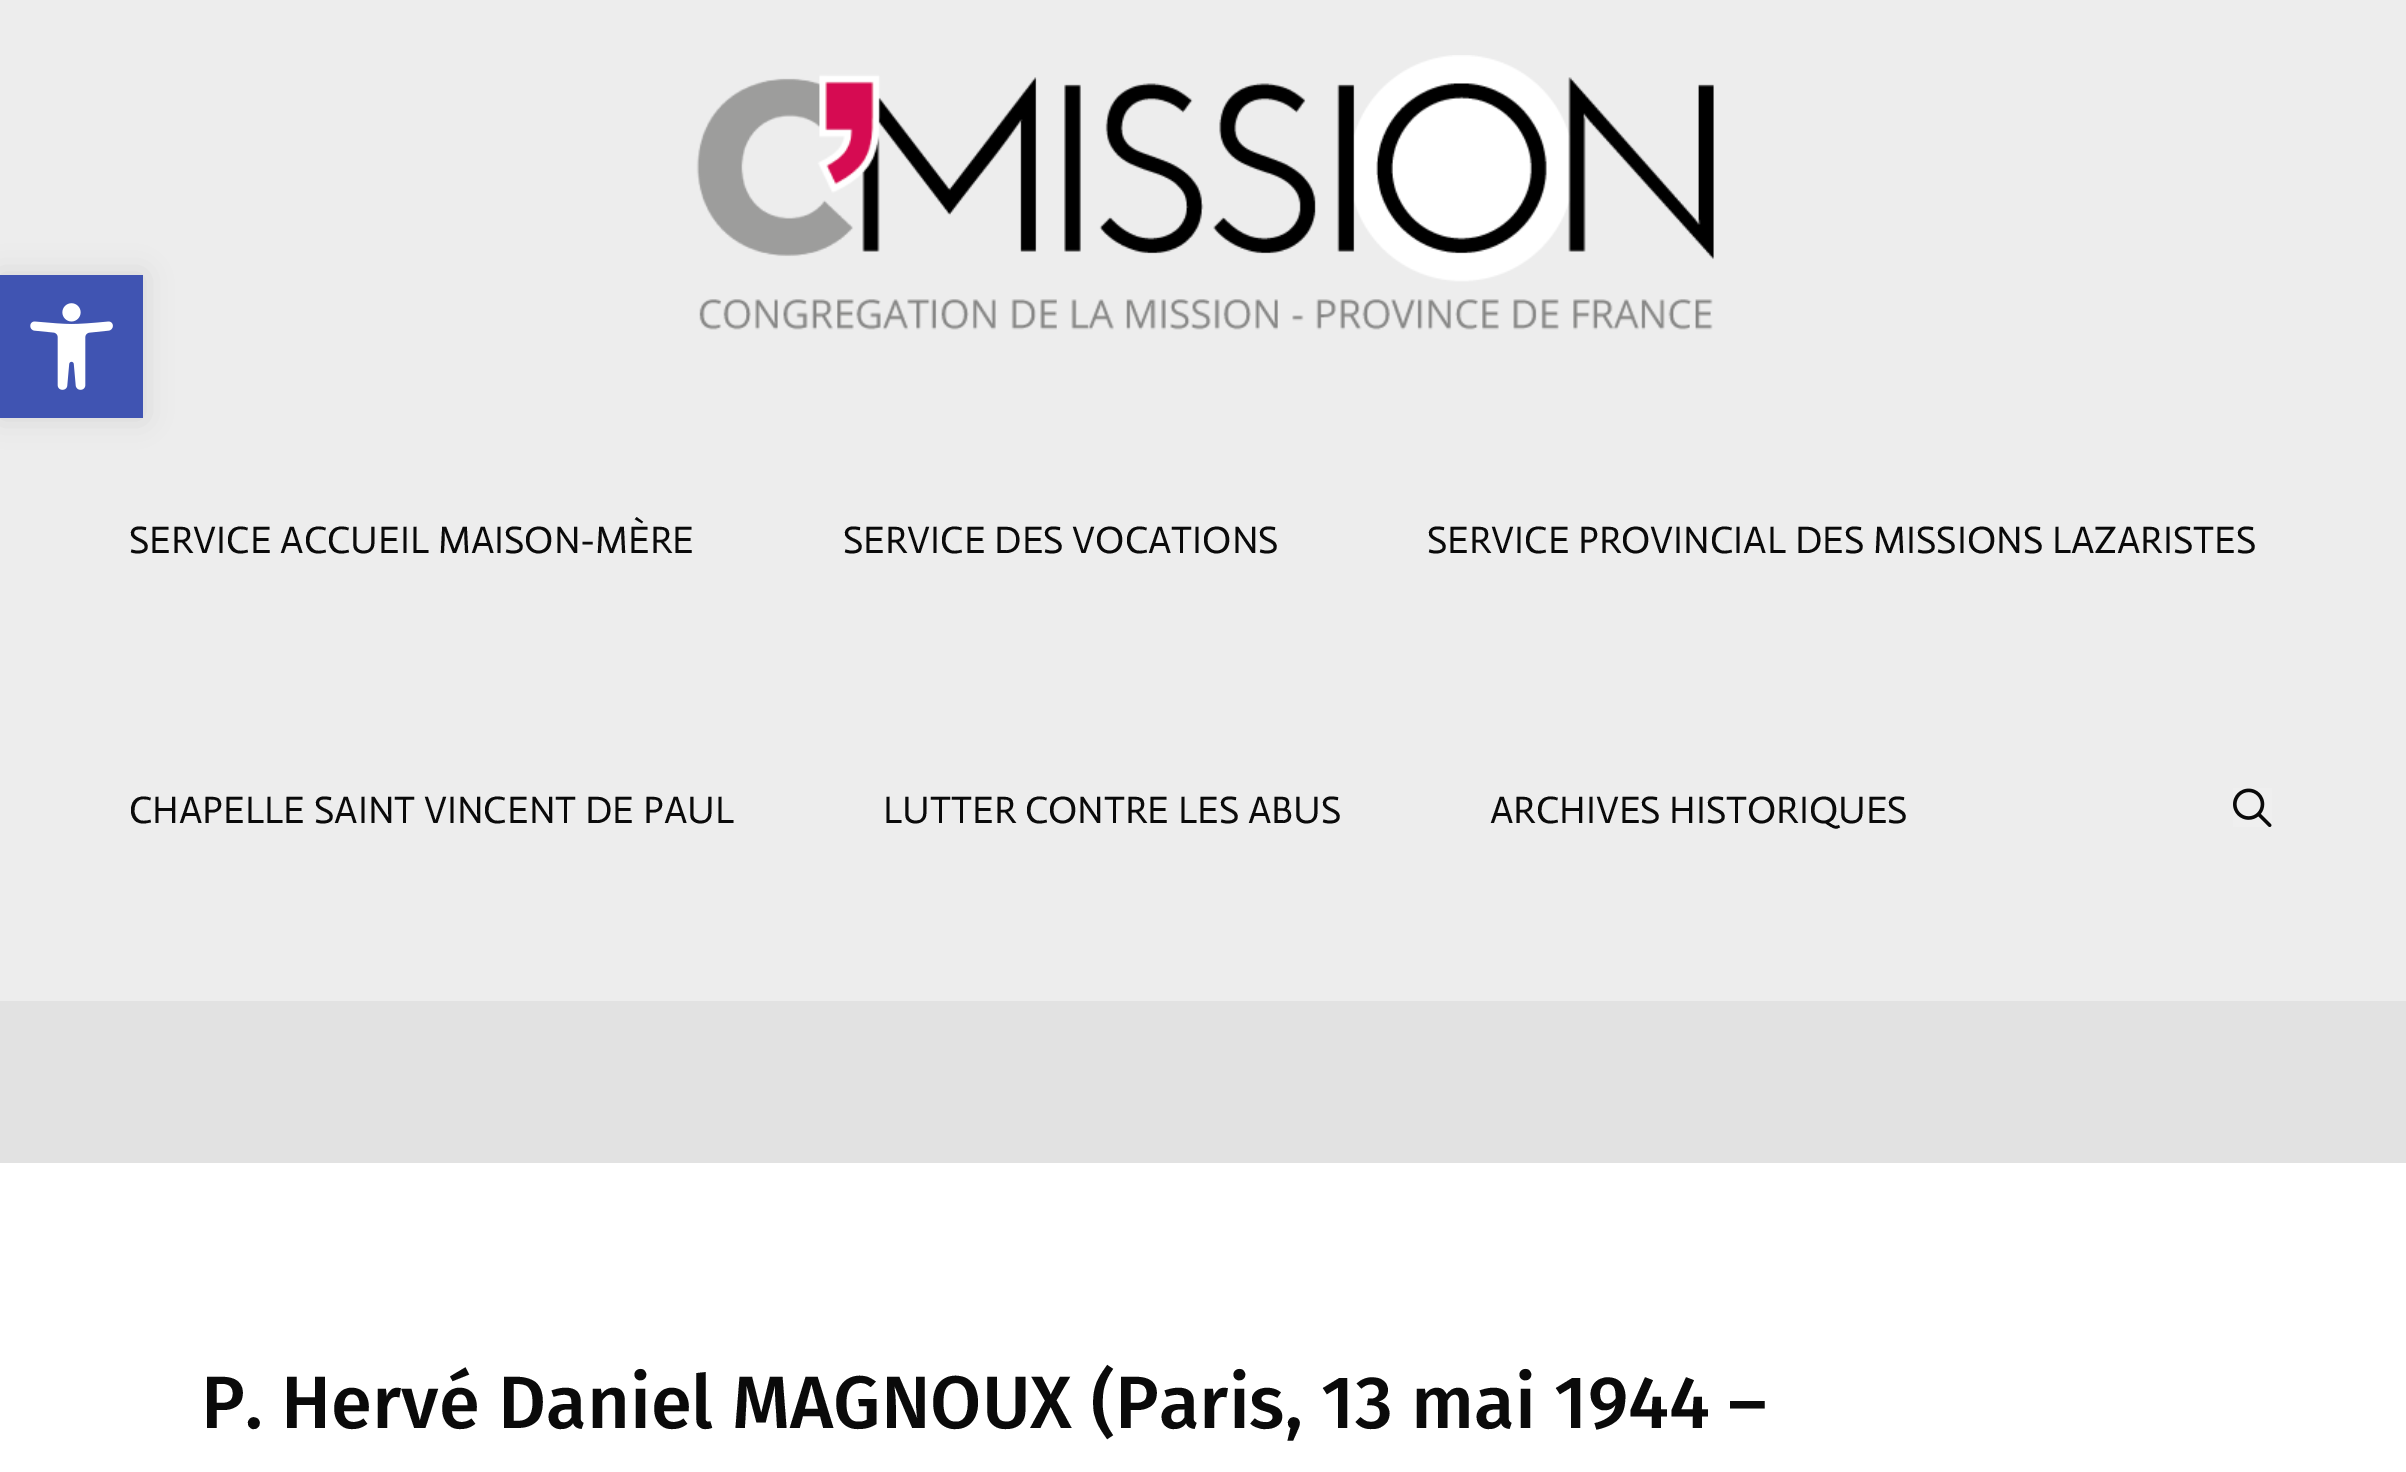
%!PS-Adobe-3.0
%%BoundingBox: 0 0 2406 1472
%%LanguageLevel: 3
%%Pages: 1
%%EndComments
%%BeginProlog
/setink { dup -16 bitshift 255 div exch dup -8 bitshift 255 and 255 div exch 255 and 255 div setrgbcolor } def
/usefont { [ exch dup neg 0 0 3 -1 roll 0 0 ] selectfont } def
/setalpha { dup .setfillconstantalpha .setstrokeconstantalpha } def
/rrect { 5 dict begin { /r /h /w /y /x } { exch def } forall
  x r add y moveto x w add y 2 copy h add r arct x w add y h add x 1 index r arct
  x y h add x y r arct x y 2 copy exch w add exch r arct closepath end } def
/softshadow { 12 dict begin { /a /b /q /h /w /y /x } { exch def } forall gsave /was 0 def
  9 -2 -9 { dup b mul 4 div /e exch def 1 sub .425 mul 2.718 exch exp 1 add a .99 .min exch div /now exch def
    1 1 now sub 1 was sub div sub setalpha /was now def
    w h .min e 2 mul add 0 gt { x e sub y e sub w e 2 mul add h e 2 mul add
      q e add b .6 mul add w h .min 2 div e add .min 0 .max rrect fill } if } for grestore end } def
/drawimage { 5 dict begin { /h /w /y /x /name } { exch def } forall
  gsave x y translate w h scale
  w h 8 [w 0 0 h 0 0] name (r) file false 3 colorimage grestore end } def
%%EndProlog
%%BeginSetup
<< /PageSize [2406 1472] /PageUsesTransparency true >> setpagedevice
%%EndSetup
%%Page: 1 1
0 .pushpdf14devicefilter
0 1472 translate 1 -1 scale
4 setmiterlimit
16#E2E2E2 setink
0 0 2406 1472 rectfill
16#EDEDED setink
0 0 2406 1001 rectfill
16#000000 setink
0 275 143 143 0 14 0.1 softshadow
16#4054B2 setink
0 275 143 143 rectfill
(img1.raw) 30 303 83 87 drawimage
(img2.raw) 696 55 1018 275 drawimage
/Actor-Regular 38.5 usefont
16#0A0A0A setink
[
    [(SERVICE ACCUEIL MAISON-MÈRE) 129 553]
    [(SERVICE DES VOCATIONS) 843 553]
    [(SERVICE PROVINCIAL DES MISSIONS LAZARISTES) 1427 553]
    [(CHAPELLE SAINT VINCENT DE PAUL) 129 823]
    [(LUTTER CONTRE LES ABUS) 883 823]
    [(ARCHIVES HISTORIQUES) 1490 823]
] { aload pop moveto show } forall
(img3.raw) 2233 788 39 39 drawimage
16#FFFFFF setink
0 1163 2406 309 rectfill
/FiraSans-Medium 74.25 usefont
16#0A0A0A setink
201 1428 moveto (P. Hervé Daniel MAGNOUX \(Paris, 13 mai 1944 –) show
.poppdf14devicefilter showpage
%%EOF
